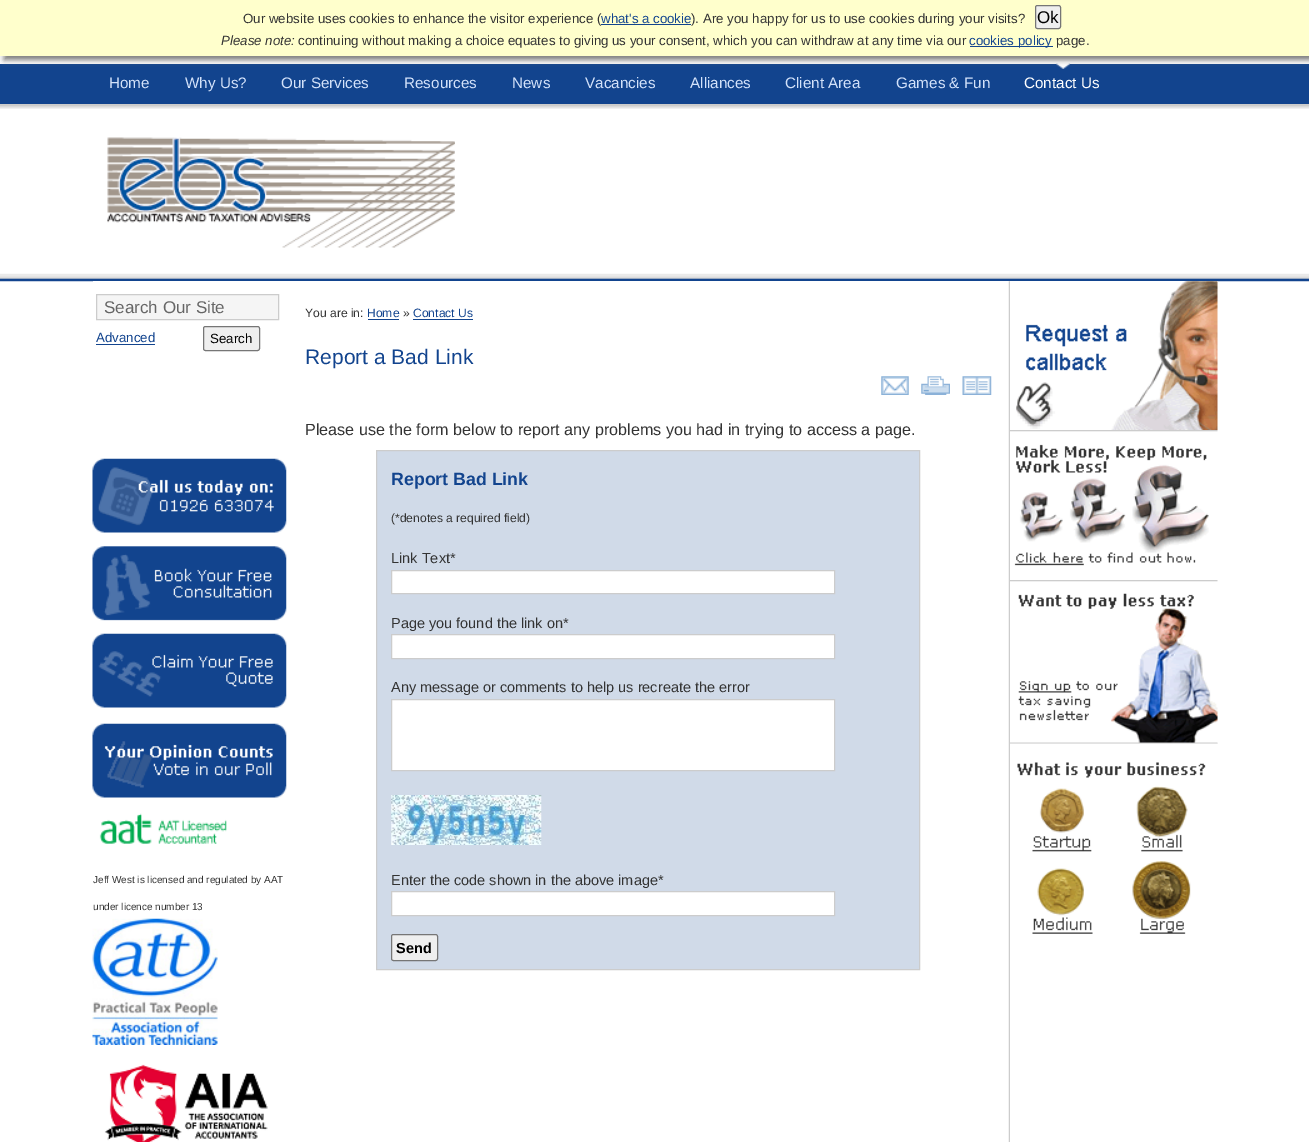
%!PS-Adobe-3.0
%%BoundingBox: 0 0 1309 1142
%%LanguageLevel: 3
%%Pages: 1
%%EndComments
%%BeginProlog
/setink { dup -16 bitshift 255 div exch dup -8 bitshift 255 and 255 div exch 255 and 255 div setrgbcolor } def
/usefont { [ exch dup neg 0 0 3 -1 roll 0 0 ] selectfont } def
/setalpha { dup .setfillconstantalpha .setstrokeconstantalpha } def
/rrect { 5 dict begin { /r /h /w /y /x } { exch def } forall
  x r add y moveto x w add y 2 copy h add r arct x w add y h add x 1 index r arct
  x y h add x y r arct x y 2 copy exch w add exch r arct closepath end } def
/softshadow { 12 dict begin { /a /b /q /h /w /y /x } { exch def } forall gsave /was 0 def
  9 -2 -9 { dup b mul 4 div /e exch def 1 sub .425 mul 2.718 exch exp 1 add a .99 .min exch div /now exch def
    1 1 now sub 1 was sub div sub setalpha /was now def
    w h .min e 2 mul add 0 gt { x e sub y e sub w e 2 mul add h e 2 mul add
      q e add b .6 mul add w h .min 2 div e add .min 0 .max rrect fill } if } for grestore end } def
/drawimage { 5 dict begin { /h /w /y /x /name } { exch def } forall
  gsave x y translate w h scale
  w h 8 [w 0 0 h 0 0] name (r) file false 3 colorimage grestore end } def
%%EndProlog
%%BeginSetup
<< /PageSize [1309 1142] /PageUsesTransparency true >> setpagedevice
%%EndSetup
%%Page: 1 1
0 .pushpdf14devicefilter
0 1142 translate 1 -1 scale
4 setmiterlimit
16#FFFFFF setink
0 0 1309 1142 rectfill
16#12448E setink
0 64 1309 40 rectfill
(img1.raw) 1056 63 14 6 drawimage
16#777777 setink
4 4 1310 56 0 3 1 softshadow
16#FFFFCC setink
0 0 1309 56 rectfill
/LiberationSans-Regular 13.3 usefont
16#333333 setink
243 23 moveto (Our website uses cookies to enhance the visitor experience \() show
16#12448E setink
601 23 moveto (what's a cookie) show
601 24 90 1 rectfill
16#333333 setink
691 23 moveto (\). Are you happy for us to use cookies during your visits?) show
16#EFEFEF setink
1035.5 5.5 25 23 2 rrect gsave fill grestore
16#767676 setink
stroke
/LiberationSans-Regular 17 usefont
16#000000 setink
1037 23 moveto (Ok) show
/LiberationSans-Italic 13.3 usefont
16#333333 setink
221 45 moveto (Please note:) show
/LiberationSans-Regular 13.3 usefont
298 45 moveto (continuing without making a choice equates to giving us your consent, which you can withdraw at any time via our) show
16#12448E setink
970 46 83 1 rectfill
969 45 moveto (cookies policy) show
16#333333 setink
1056 45 moveto (page.) show
/LiberationSans-Regular 15.25 usefont
16#D3E2FA setink
[
    [(Home) 109 88]
    [(Why Us?) 185 88]
    [(Our Services) 281 88]
    [(Resources) 404 88]
    [(News) 512 88]
    [(Vacancies) 585 88]
    [(Alliances) 690 88]
    [(Client Area) 785 88]
    [(Games & Fun) 896 88]
] { aload pop moveto show } forall
16#FFFFFF setink
1024 88 moveto (Contact Us) show
(img2.raw) 0 273 1309 9 drawimage
(img3.raw) 0 104 1309 5 drawimage
(img4.raw) 107 137 348 111 drawimage
93 281 1125 1 rectfill
(img5.raw) 1008 281 2 861 drawimage
16#F5F5F5 setink
96.5 294.5 moveto 278.5 294.5 lineto 278.5 319.5 lineto 96.5 319.5 lineto closepath gsave fill grestore
16#CCCCCC setink
stroke
/LiberationSans-Regular 17 usefont
16#666666 setink
104 313 moveto (Search Our Site) show
/LiberationSans-Regular 13.3 usefont
16#12448E setink
96 342 moveto (Advanced) show
96 344 59 1 rectfill
16#EFEFEF setink
203.5 326.5 56 24 2 rrect gsave fill grestore
16#767676 setink
stroke
16#000000 setink
210 343 moveto (Search) show
(img6.raw) 92 458 195 75 drawimage
(img7.raw) 92 546 195 75 drawimage
(img8.raw) 92 633 195 75 drawimage
(img9.raw) 92 723 195 75 drawimage
(img10.raw) 99 813 128 31 drawimage
/LiberationSans-Regular 10 usefont
16#333333 setink
93 883 moveto (Jeff West is licensed and regulated by AAT) show
93 910 moveto (under licence number 13) show
(img11.raw) 92 918 126 127 drawimage
(img12.raw) 104 1064 164 78 drawimage
/LiberationSans-Regular 12.1 usefont
305 317 moveto (You are in:) show
16#12448E setink
367 317 moveto (Home) show
368 319 31 1 rectfill
16#333333 setink
403 317 moveto (») show
16#12448E setink
413 317 moveto (Contact Us) show
413 319 60 1 rectfill
/LiberationSans-Regular 21 usefont
305 364 moveto (Report a Bad Link) show
(img13.raw) 881 376 28 19 drawimage
(img14.raw) 921 376 29 19 drawimage
(img15.raw) 962 376 30 19 drawimage
/LiberationSans-Regular 16.15 usefont
16#333333 setink
305 435 moveto (Please use the form below to report any problems you had in trying to access a page.) show
16#D0DAE8 setink
376.5 450.5 moveto 919.5 450.5 lineto 919.5 969.5 lineto 376.5 969.5 lineto closepath gsave fill grestore
16#CCCCCC setink
stroke
/LiberationSans-Bold 17.75 usefont
16#12448E setink
391 485 moveto (Report Bad Link) show
/LiberationSans-Regular 12.1 usefont
16#333333 setink
391 522 moveto (\(*denotes a required field\)) show
/LiberationSans-Regular 14.5 usefont
391 563 moveto (Link Text*) show
16#FFFFFF setink
391.5 570.5 moveto 834.5 570.5 lineto 834.5 593.5 lineto 391.5 593.5 lineto closepath gsave fill grestore
16#CCCCCC setink
stroke
16#333333 setink
391 628 moveto (Page you found the link on*) show
16#FFFFFF setink
391.5 634.5 moveto 834.5 634.5 lineto 834.5 658.5 lineto 391.5 658.5 lineto closepath gsave fill grestore
16#CCCCCC setink
stroke
16#333333 setink
391 692 moveto (Any message or comments to help us recreate the error) show
16#FFFFFF setink
391.5 699.5 moveto 834.5 699.5 lineto 834.5 770.5 lineto 391.5 770.5 lineto closepath gsave fill grestore
16#CCCCCC setink
stroke
(img16.raw) 391 795 151 50 drawimage
16#333333 setink
391 885 moveto (Enter the code shown in the above image*) show
16#FFFFFF setink
391.5 891.5 moveto 834.5 891.5 lineto 834.5 915.5 lineto 391.5 915.5 lineto closepath gsave fill grestore
16#CCCCCC setink
stroke
16#EFEFEF setink
391.5 934.5 46 26 2 rrect gsave fill grestore
16#767676 setink
stroke
/LiberationSans-Bold 14.5 usefont
16#000000 setink
396 953 moveto (Send) show
(img17.raw) 1016 281 202 149 drawimage
(img18.raw) 1010 430 208 136 drawimage
(img19.raw) 1010 580 208 164 drawimage
(img20.raw) 1010 743 207 35 drawimage
(img21.raw) 1032 788 60 64 drawimage
(img22.raw) 1136 786 52 66 drawimage
(img23.raw) 1032 868 61 66 drawimage
(img24.raw) 1132 861 59 73 drawimage
.poppdf14devicefilter showpage
%%EOF
